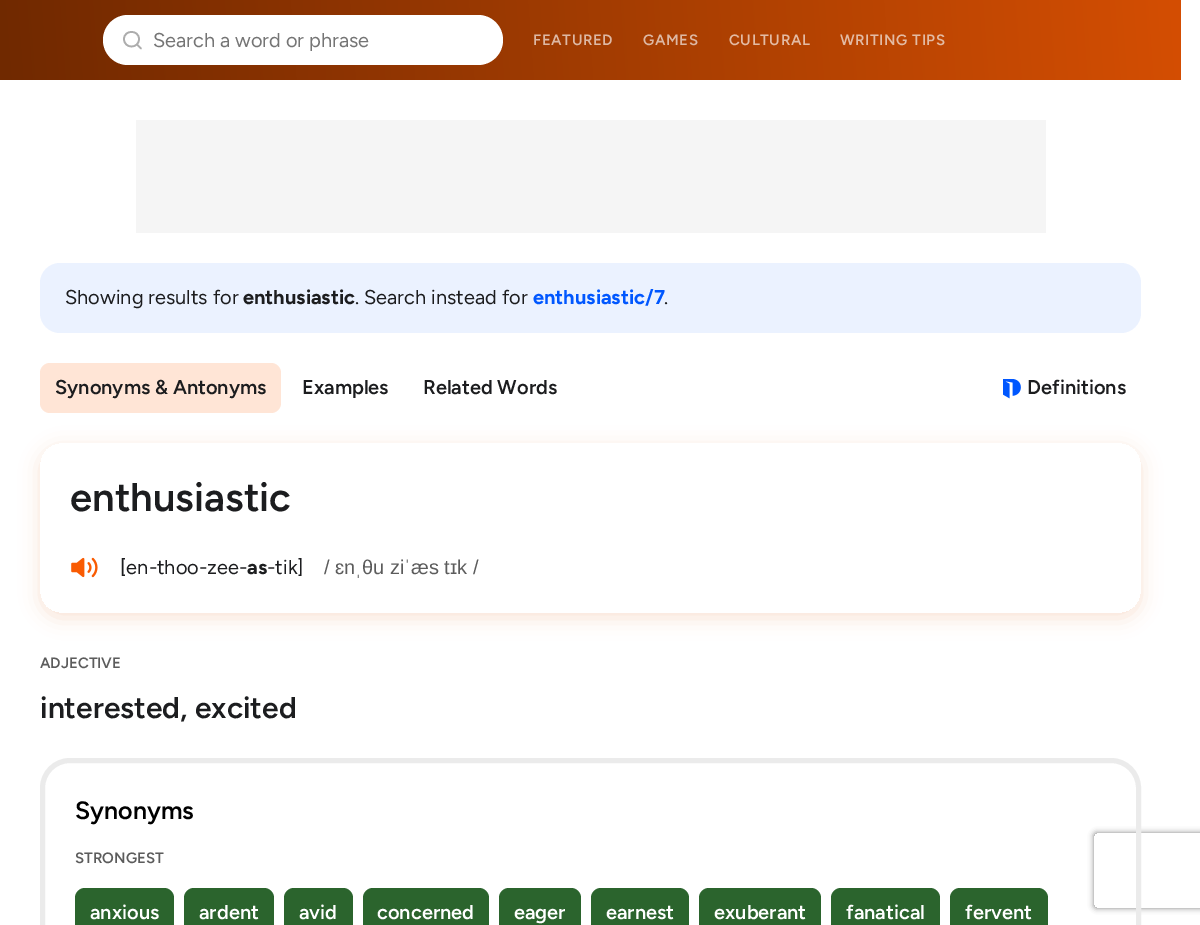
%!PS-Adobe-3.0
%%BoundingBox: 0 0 1200 925
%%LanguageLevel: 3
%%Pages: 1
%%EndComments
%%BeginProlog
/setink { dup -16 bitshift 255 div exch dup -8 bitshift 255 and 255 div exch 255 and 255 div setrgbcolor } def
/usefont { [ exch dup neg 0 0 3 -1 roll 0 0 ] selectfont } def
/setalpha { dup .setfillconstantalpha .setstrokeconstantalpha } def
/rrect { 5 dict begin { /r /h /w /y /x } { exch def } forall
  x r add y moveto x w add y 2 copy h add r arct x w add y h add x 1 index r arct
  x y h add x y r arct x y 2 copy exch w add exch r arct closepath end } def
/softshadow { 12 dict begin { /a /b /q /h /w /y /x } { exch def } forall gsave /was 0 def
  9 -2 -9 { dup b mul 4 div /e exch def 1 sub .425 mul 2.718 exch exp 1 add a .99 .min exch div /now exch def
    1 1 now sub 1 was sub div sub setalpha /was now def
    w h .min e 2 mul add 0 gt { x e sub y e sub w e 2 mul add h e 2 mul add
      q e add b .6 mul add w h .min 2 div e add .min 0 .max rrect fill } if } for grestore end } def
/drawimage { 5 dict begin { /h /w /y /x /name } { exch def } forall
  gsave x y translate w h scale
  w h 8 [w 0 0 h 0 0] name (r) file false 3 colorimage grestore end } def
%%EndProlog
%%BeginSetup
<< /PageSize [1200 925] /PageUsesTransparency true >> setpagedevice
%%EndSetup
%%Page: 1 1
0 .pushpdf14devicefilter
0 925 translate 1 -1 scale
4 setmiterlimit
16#FFFFFF setink
0 0 1200 925 rectfill
gsave 0 0 moveto 1181 0 lineto 1181 80 lineto 0 80 lineto closepath clip newpath
<< /ShadingType 2 /ColorSpace /DeviceRGB /Coords [0.2 83 1181 -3.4] /Extend [true true] /Function << /FunctionType 2 /Domain [0 1] /C0 [0.439 0.161 0] /C1 [0.831 0.306 0.008] /N 1 >> >> shfill grestore
103 15 400 50 25 rrect fill
16#ADADAD setink
1.7 setlinewidth
1 setlinecap
1 setlinejoin
141 48.5 moveto 137 44.5 lineto 139 39 moveto 139 49 124 49 124 39 curveto 124 29.5 139 29.5 139 39 curveto closepath stroke
/Figtree-Regular 20 usefont
16#757575 setink
153 47 moveto (Search a word or phrase) show
/Figtree-SemiBold 15 usefont
16#DDB8A4 setink
533 45 moveto 0.6 0 (FEATURED) ashow
643 45 moveto 0.6 0 (GAMES) ashow
16#E3BBA4 setink
729 45 moveto 0.6 0 (CULTURAL) ashow
840 45 moveto 0.6 0 (WRITING TIPS) ashow
16#F5F5F5 setink
136 120 910 113 rectfill
16#EBF2FF setink
40 263 1101 70 20 rrect fill
/Figtree-Regular 20 usefont
16#1C1D1F setink
65 304 moveto (Showing results for) show
/Figtree-Bold 20 usefont
243 304 moveto (enthusiastic) show
/Figtree-Regular 20 usefont
355 304 moveto (. Search instead for) show
/Figtree-Bold 20 usefont
16#0057FF setink
533 304 moveto (enthusiastic/7) show
/Figtree-Regular 20 usefont
16#1C1D1F setink
664 304 moveto (.) show
16#FFE5D6 setink
40 363 241 50 10 rrect fill
/Figtree-SemiBold 20 usefont
16#1C1D1F setink
[
    [(Synonyms & Antonyms) 55 394]
    [(Examples) 302 394]
    [(Related Words) 423 394]
] { aload pop moveto show } forall
(img1.raw) 1003 379 18 20 drawimage
1027 394 moveto (Definitions) show
gsave
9 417 moveto 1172 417 lineto 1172 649 lineto 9 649 lineto closepath 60 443 moveto 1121 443 lineto 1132 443 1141 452 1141 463 curveto 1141 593 lineto 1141 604 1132 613 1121 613 curveto 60 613 lineto 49 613 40 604 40 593 curveto 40 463 lineto 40 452 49 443 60 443 curveto closepath eoclip newpath
16#D44E02 setink
40 448 1101 170 20 10 0.16 softshadow
grestore
/Figtree-SemiBold 40 usefont
70 511 moveto (enthusiastic) show
(img2.raw) 71 557 27 21 drawimage
/Figtree-Regular 20 usefont
120 574 moveto ([en-thoo-zee-) show
/Figtree-Bold 20 usefont
247 574 moveto (as) show
/Figtree-Regular 20 usefont
267 574 moveto (-tik]) show
/LiberationSans-Regular 20 usefont
16#5C5C5C setink
324 574 moveto (/ ɛnˌθu ziˈæs tɪk /) show
/Figtree-SemiBold 15 usefont
40 668 moveto (ADJECTIVE) show
/Figtree-SemiBold 30 usefont
16#1C1D1F setink
40 718 moveto (interested, excited) show
gsave
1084 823 moveto 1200 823 lineto 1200 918 lineto 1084 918 lineto closepath 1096.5 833 moveto 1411.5 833 lineto 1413 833 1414 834 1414 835.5 curveto 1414 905.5 lineto 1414 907 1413 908 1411.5 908 curveto 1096.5 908 lineto 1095 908 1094 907 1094 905.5 curveto 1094 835.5 lineto 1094 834 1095 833 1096.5 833 curveto closepath eoclip newpath
16#808080 setink
1094 833 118 75 2.5 3 1 softshadow
grestore
16#EBEBEB setink
5 setlinewidth
0 setlinecap
0 setlinejoin
42.5 760.5 1096 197 27.5 rrect stroke
/Figtree-SemiBold 25 usefont
16#000000 setink
75 819 moveto (Synonyms) show
/Figtree-SemiBold 15 usefont
16#5C5C5C setink
75 863 moveto (STRONGEST) show
16#2B642D setink
75 888 99 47 10 rrect fill
/Figtree-SemiBold 20 usefont
16#FFFFFF setink
90 919 moveto (anxious) show
16#2B642D setink
184 888 90 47 10 rrect fill
16#FFFFFF setink
199 919 moveto (ardent) show
16#2B642D setink
284 888 69 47 10 rrect fill
16#FFFFFF setink
299 919 moveto (avid) show
16#2B642D setink
363 888 126 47 10 rrect fill
16#FFFFFF setink
377 919 moveto (concerned) show
16#2B642D setink
499 888 82 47 10 rrect fill
16#FFFFFF setink
514 919 moveto (eager) show
16#2B642D setink
591 888 98 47 10 rrect fill
16#FFFFFF setink
606 919 moveto (earnest) show
16#2B642D setink
699 888 122 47 10 rrect fill
16#FFFFFF setink
714 919 moveto (exuberant) show
16#2B642D setink
831 888 109 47 10 rrect fill
16#FFFFFF setink
846 919 moveto (fanatical) show
16#2B642D setink
950 888 98 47 10 rrect fill
16#FFFFFF setink
965 919 moveto (fervent) show
.poppdf14devicefilter showpage
%%EOF
